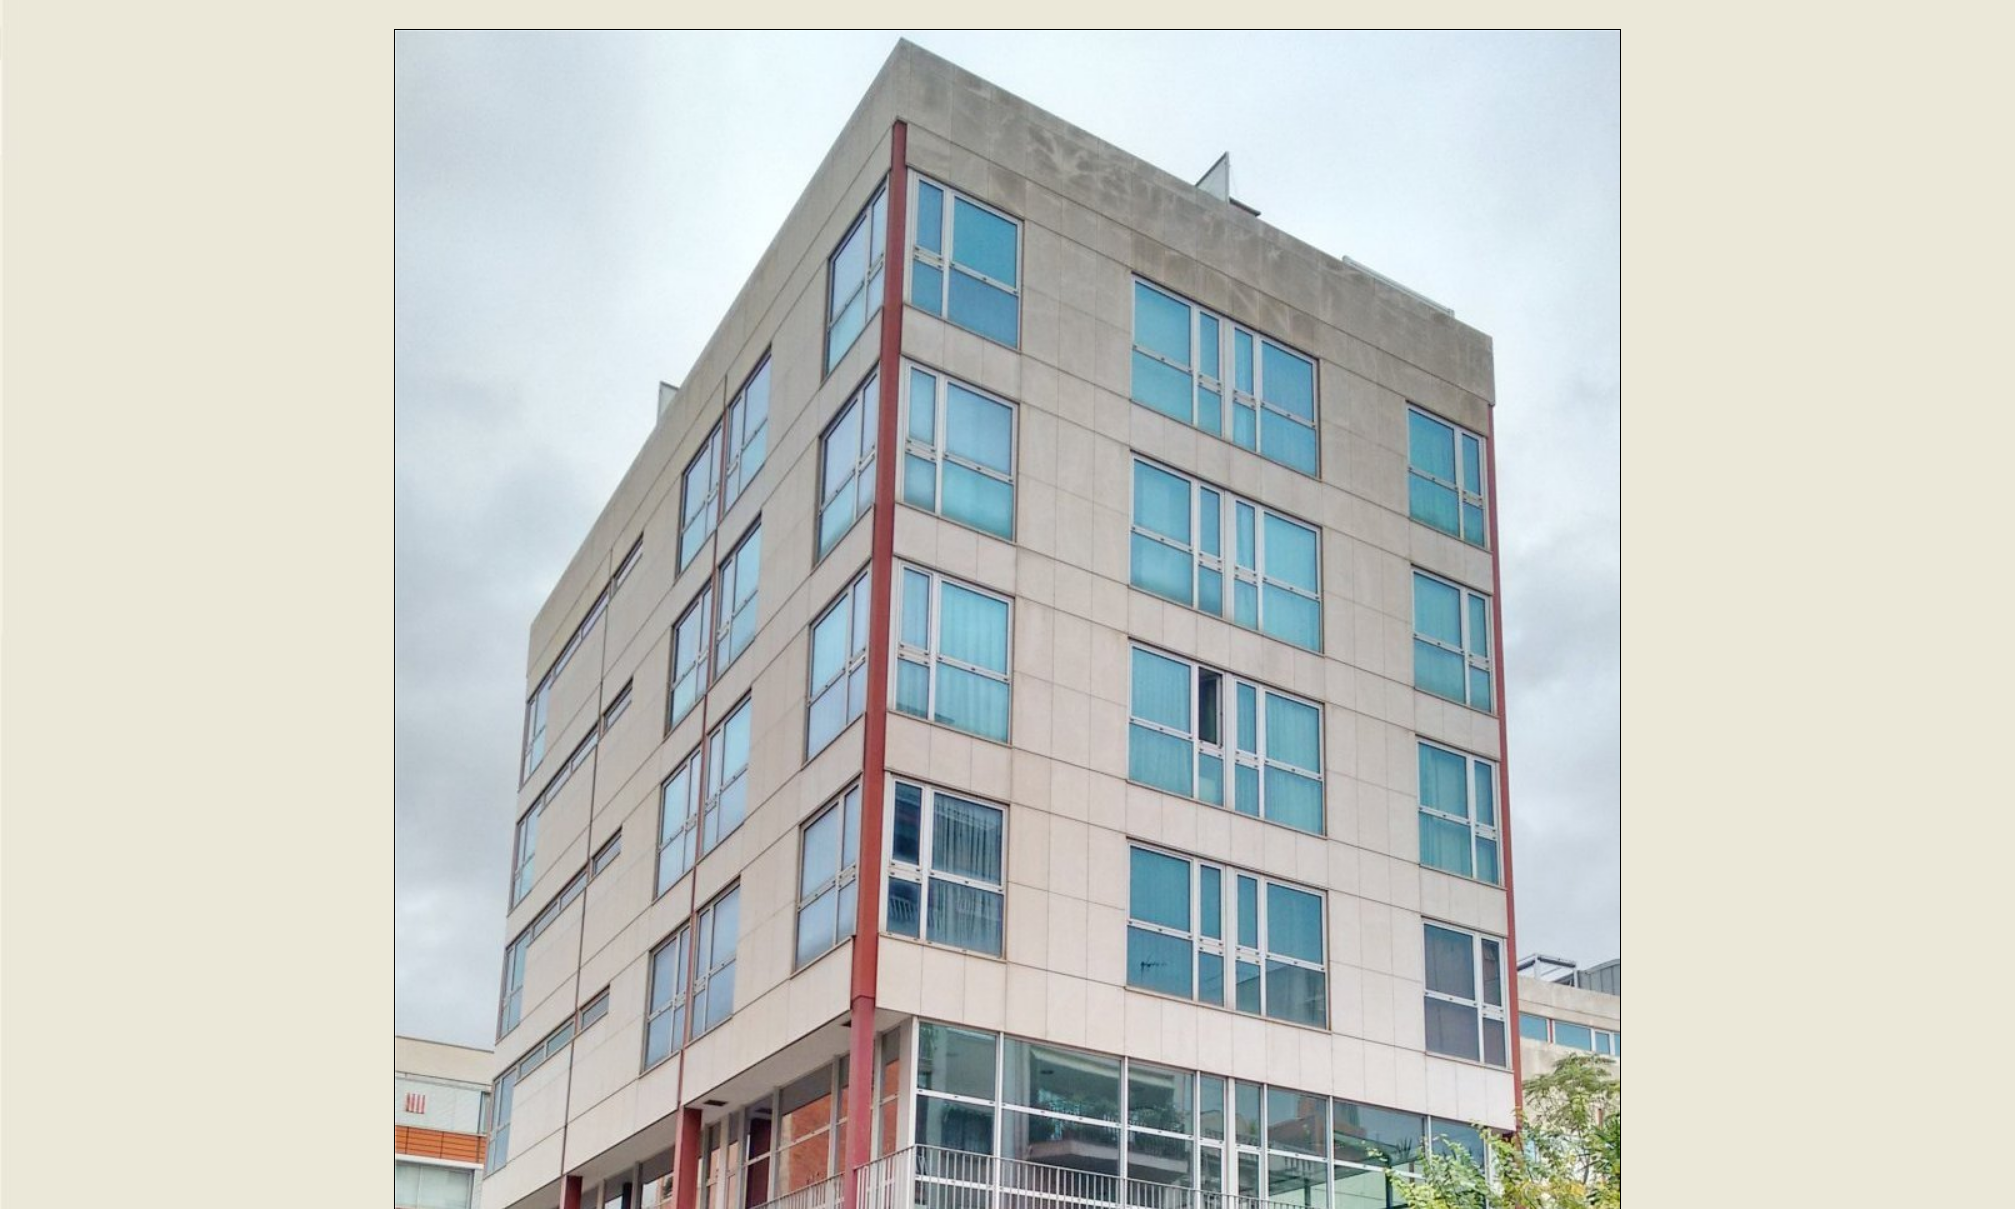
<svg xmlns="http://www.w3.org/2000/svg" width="2015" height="1209">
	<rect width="100%" height="100%" fill="#FFFFFF" />
	<image x="0" y="0" width="2015" height="1209" href="assets/img1.png" />
	<rect x="394.5" y="29.5" width="1226" height="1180" fill="none" stroke="#000000" />
	<image x="395" y="30" width="1225" height="1179" href="assets/img2.png" />
</svg>
